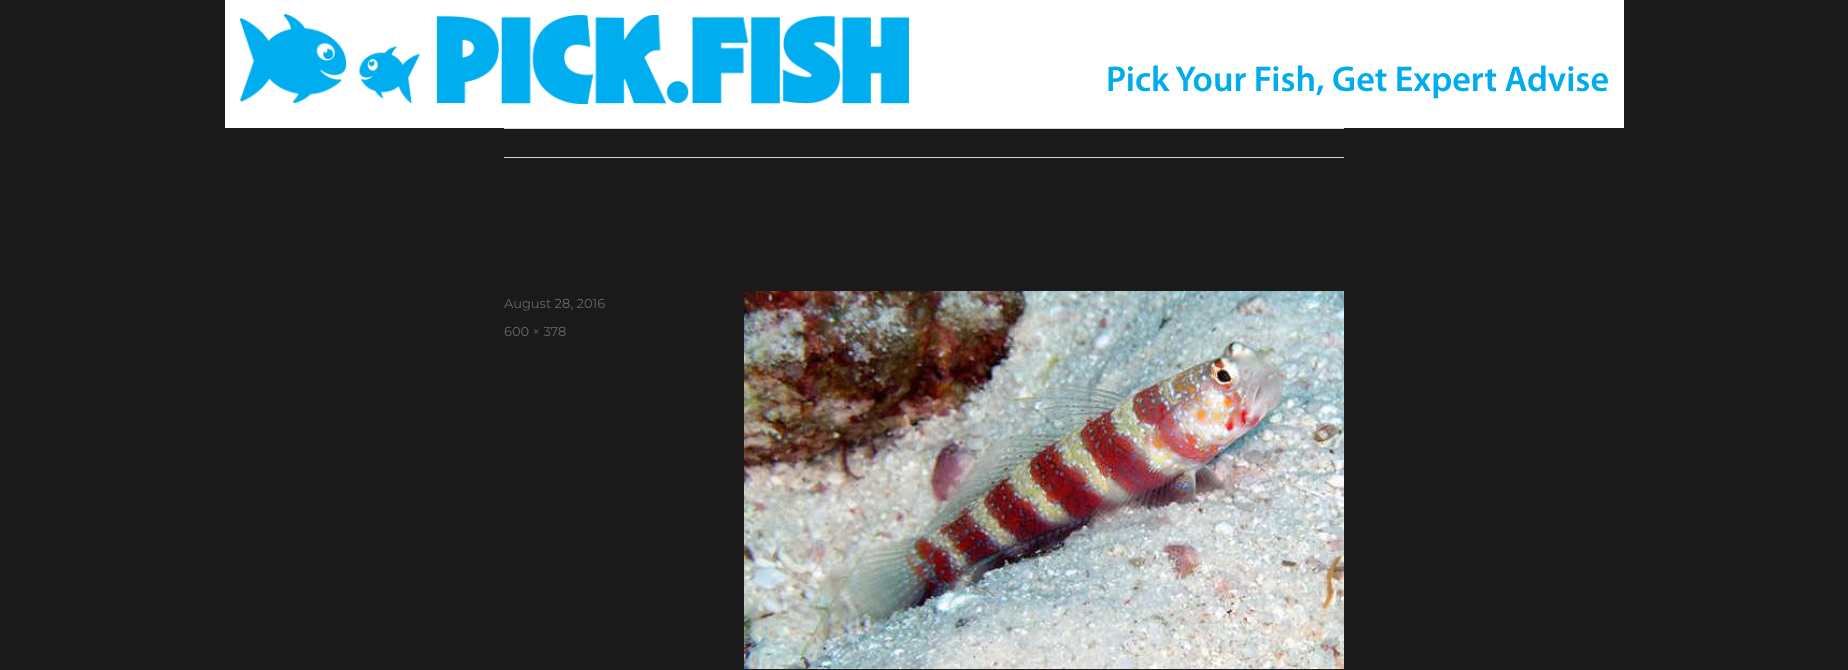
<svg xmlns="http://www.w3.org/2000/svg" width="1848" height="670">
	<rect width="100%" height="100%" fill="#1A1A1A" />
	<rect x="225" y="0" width="1399" height="128" fill="#FFFFFF" />
	<image x="240" y="14" width="669" height="90" href="assets/img1.png" />
	<text x="1106" y="91" font-family="Myriad" font-size="36" font-weight="600" fill="#00ACEC">Pick Your Fish, Get Expert Advise</text>
	<rect x="504" y="128" width="840" height="1" fill="#D1D1D1" />
	<rect x="504" y="157" width="840" height="1" fill="#D1D1D1" />
	<g font-family="Montserrat" font-size="13" fill="#686868">
		<text x="504" y="308">August 28, 2016</text>
		<text x="504" y="336">600 × 378</text>
	</g>
	<image x="744" y="291" width="600" height="378" href="assets/img2.png" />
</svg>
